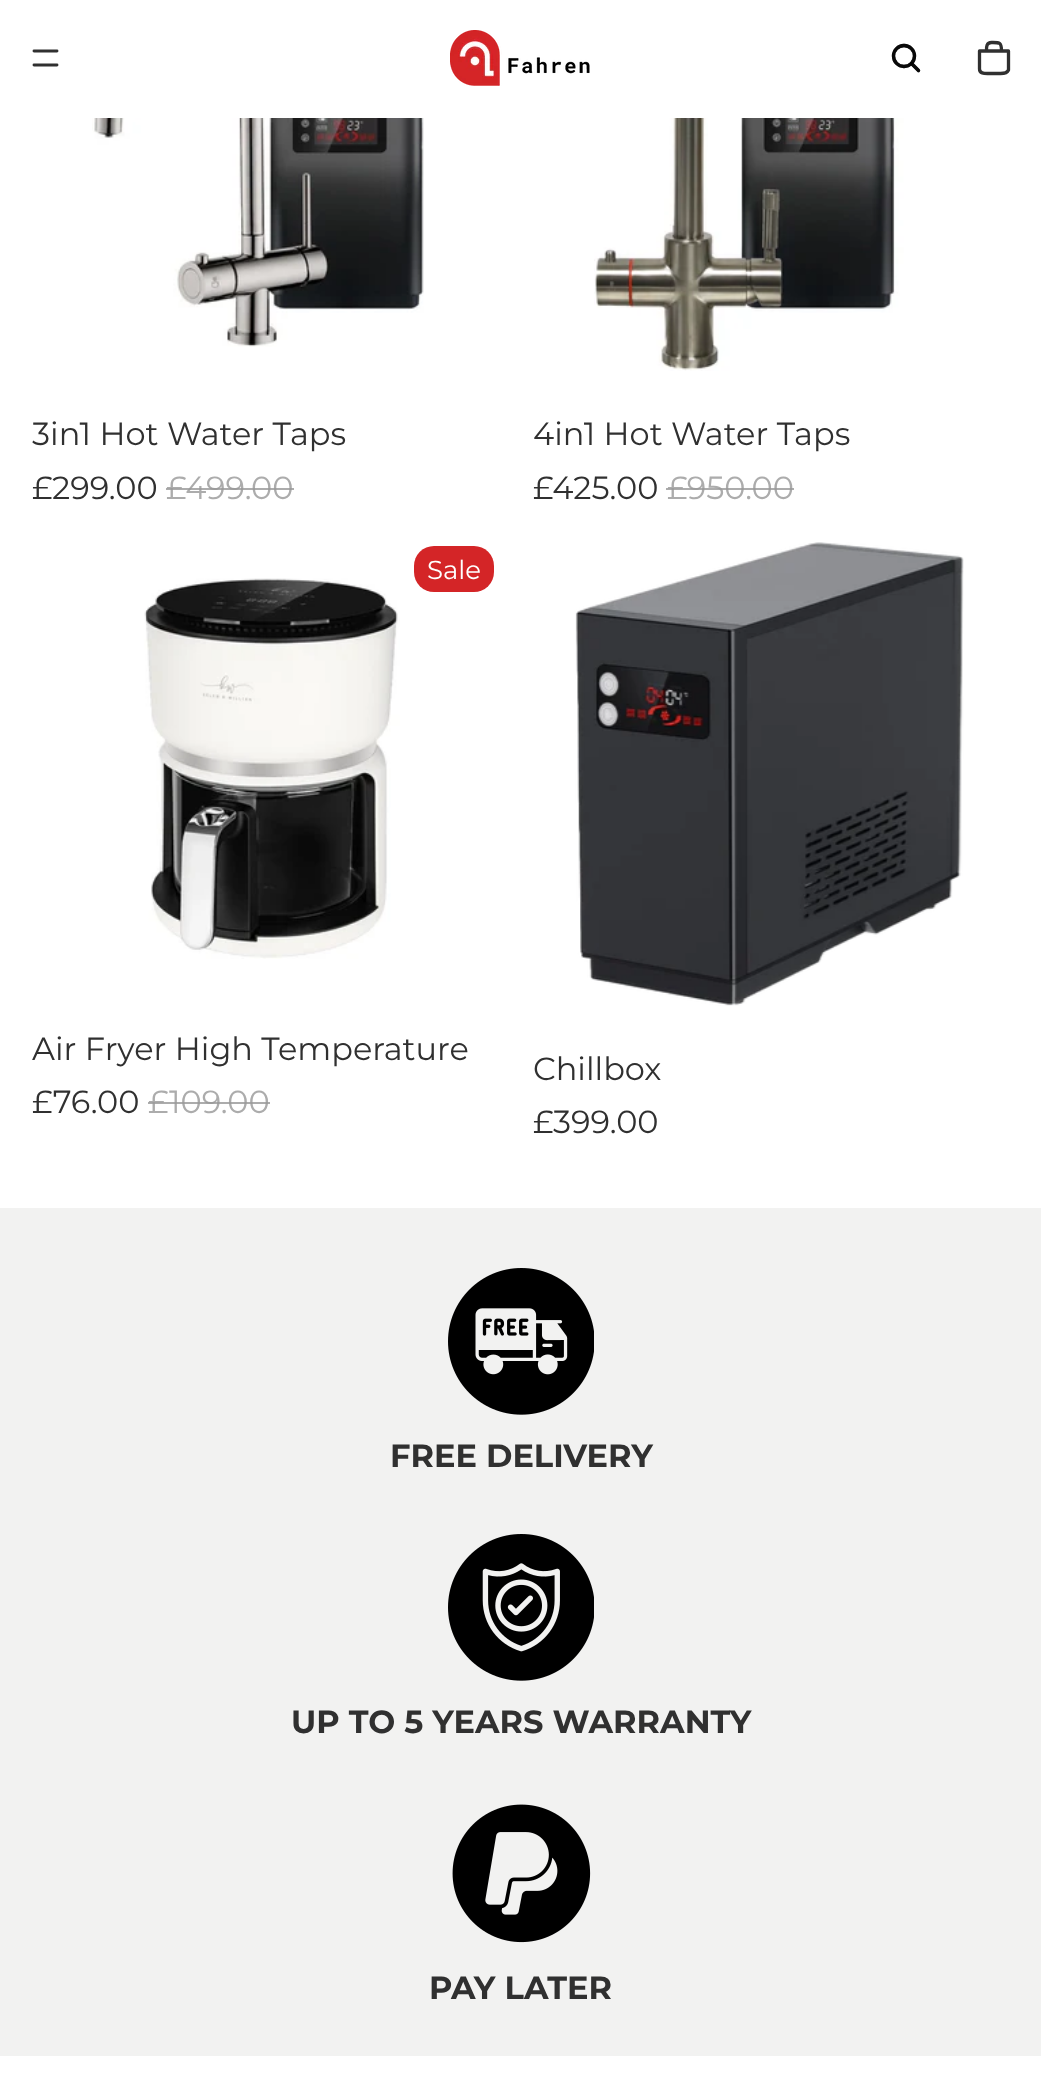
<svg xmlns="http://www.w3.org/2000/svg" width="1041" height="2091">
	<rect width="100%" height="100%" fill="#FFFFFF" />
	<path d="M34 51H57M34 65H57" fill="none" stroke="#303030" stroke-width="2.9" stroke-linecap="round" />
	<image x="450" y="30" width="140" height="56" href="assets/img1.png" />
	<circle cx="904" cy="56" r="10.5" fill="none" stroke="#303030" stroke-width="3.3" />
	<path d="M911.5 63.5L918.5 70.5" fill="none" stroke="#000000" stroke-opacity="0.81" stroke-width="3.3" stroke-linecap="round" stroke-linejoin="round" />
	<circle cx="904" cy="56" r="10.5" fill="none" stroke="#000000" stroke-opacity="0.81" stroke-width="3.3" />
	<path d="M911.5 63.5L918.5 70.5" fill="none" stroke="#000000" stroke-opacity="0.81" stroke-width="3.3" stroke-linecap="round" stroke-linejoin="round" />
	<path d="M979.5 51H1008.5V70C1007 73.5 1003.5 73.5 1000.5 73.5H987.5C984 73.5 979.5 73.5 979.5 69ZM991.5 42.5C999.5 42.5 1001.5 42 1001.5 51H986.5C986.5 47.5 986 42.5 991.5 42.5" fill="none" stroke="#303030" stroke-width="3.3" stroke-linecap="round" stroke-linejoin="round" />
	<image x="92" y="118" width="332" height="229" href="assets/img2.png" />
	<g font-family="Montserrat" font-size="32" fill="#303030">
		<text x="32" y="445">3in1 Hot Water Taps</text>
		<text x="32" y="499">£299.00</text>
	</g>
	<text x="166" y="499" font-family="Montserrat" font-size="32" fill="#ACACAC">£499.00</text>
	<rect x="166" y="488" width="128" height="2" fill="#999999" fill-opacity="0.81" />
	<image x="594" y="118" width="337" height="253" href="assets/img3.png" />
	<g font-family="Montserrat" font-size="32" fill="#303030">
		<text x="533" y="445">4in1 Hot Water Taps</text>
		<text x="533" y="499">£425.00</text>
	</g>
	<text x="667" y="499" font-family="Montserrat" font-size="32" fill="#ACACAC">£950.00</text>
	<rect x="666" y="488" width="128" height="2" fill="#999999" fill-opacity="0.81" />
	<rect x="414" y="546" width="80" height="46" rx="20" fill="#D42527" />
	<text x="427" y="579" font-family="Montserrat" font-size="26" fill="#FFFFFF">Sale</text>
	<image x="144" y="578" width="256" height="381" href="assets/img4.png" />
	<g font-family="Montserrat" font-size="32" fill="#303030">
		<text x="32" y="1060">Air Fryer High Temperature</text>
		<text x="32" y="1113">£76.00</text>
	</g>
	<text x="148" y="1113" font-family="Montserrat" font-size="32" fill="#ACACAC">£109.00</text>
	<rect x="148" y="1102" width="122" height="2" fill="#999999" fill-opacity="0.81" />
	<image x="575" y="542" width="389" height="464" href="assets/img5.png" />
	<g font-family="Montserrat" font-size="32" fill="#303030">
		<text x="533" y="1080">Chillbox</text>
		<text x="533" y="1133">£399.00</text>
	</g>
	<rect x="0" y="1208" width="1041" height="848" fill="#F2F2F1" />
	<image x="448" y="1268" width="146" height="147" href="assets/img6.png" />
	<text x="390" y="1467" font-family="Montserrat" font-size="32" font-weight="700" fill="#303030">FREE DELIVERY</text>
	<image x="448" y="1534" width="146" height="147" href="assets/img7.png" />
	<text x="291" y="1733" font-family="Montserrat" font-size="32" font-weight="700" fill="#303030">UP TO 5 YEARS WARRANTY</text>
	<image x="452" y="1804" width="139" height="139" href="assets/img8.png" />
	<text x="429" y="1999" font-family="Montserrat" font-size="32" font-weight="700" fill="#303030">PAY LATER</text>
</svg>
